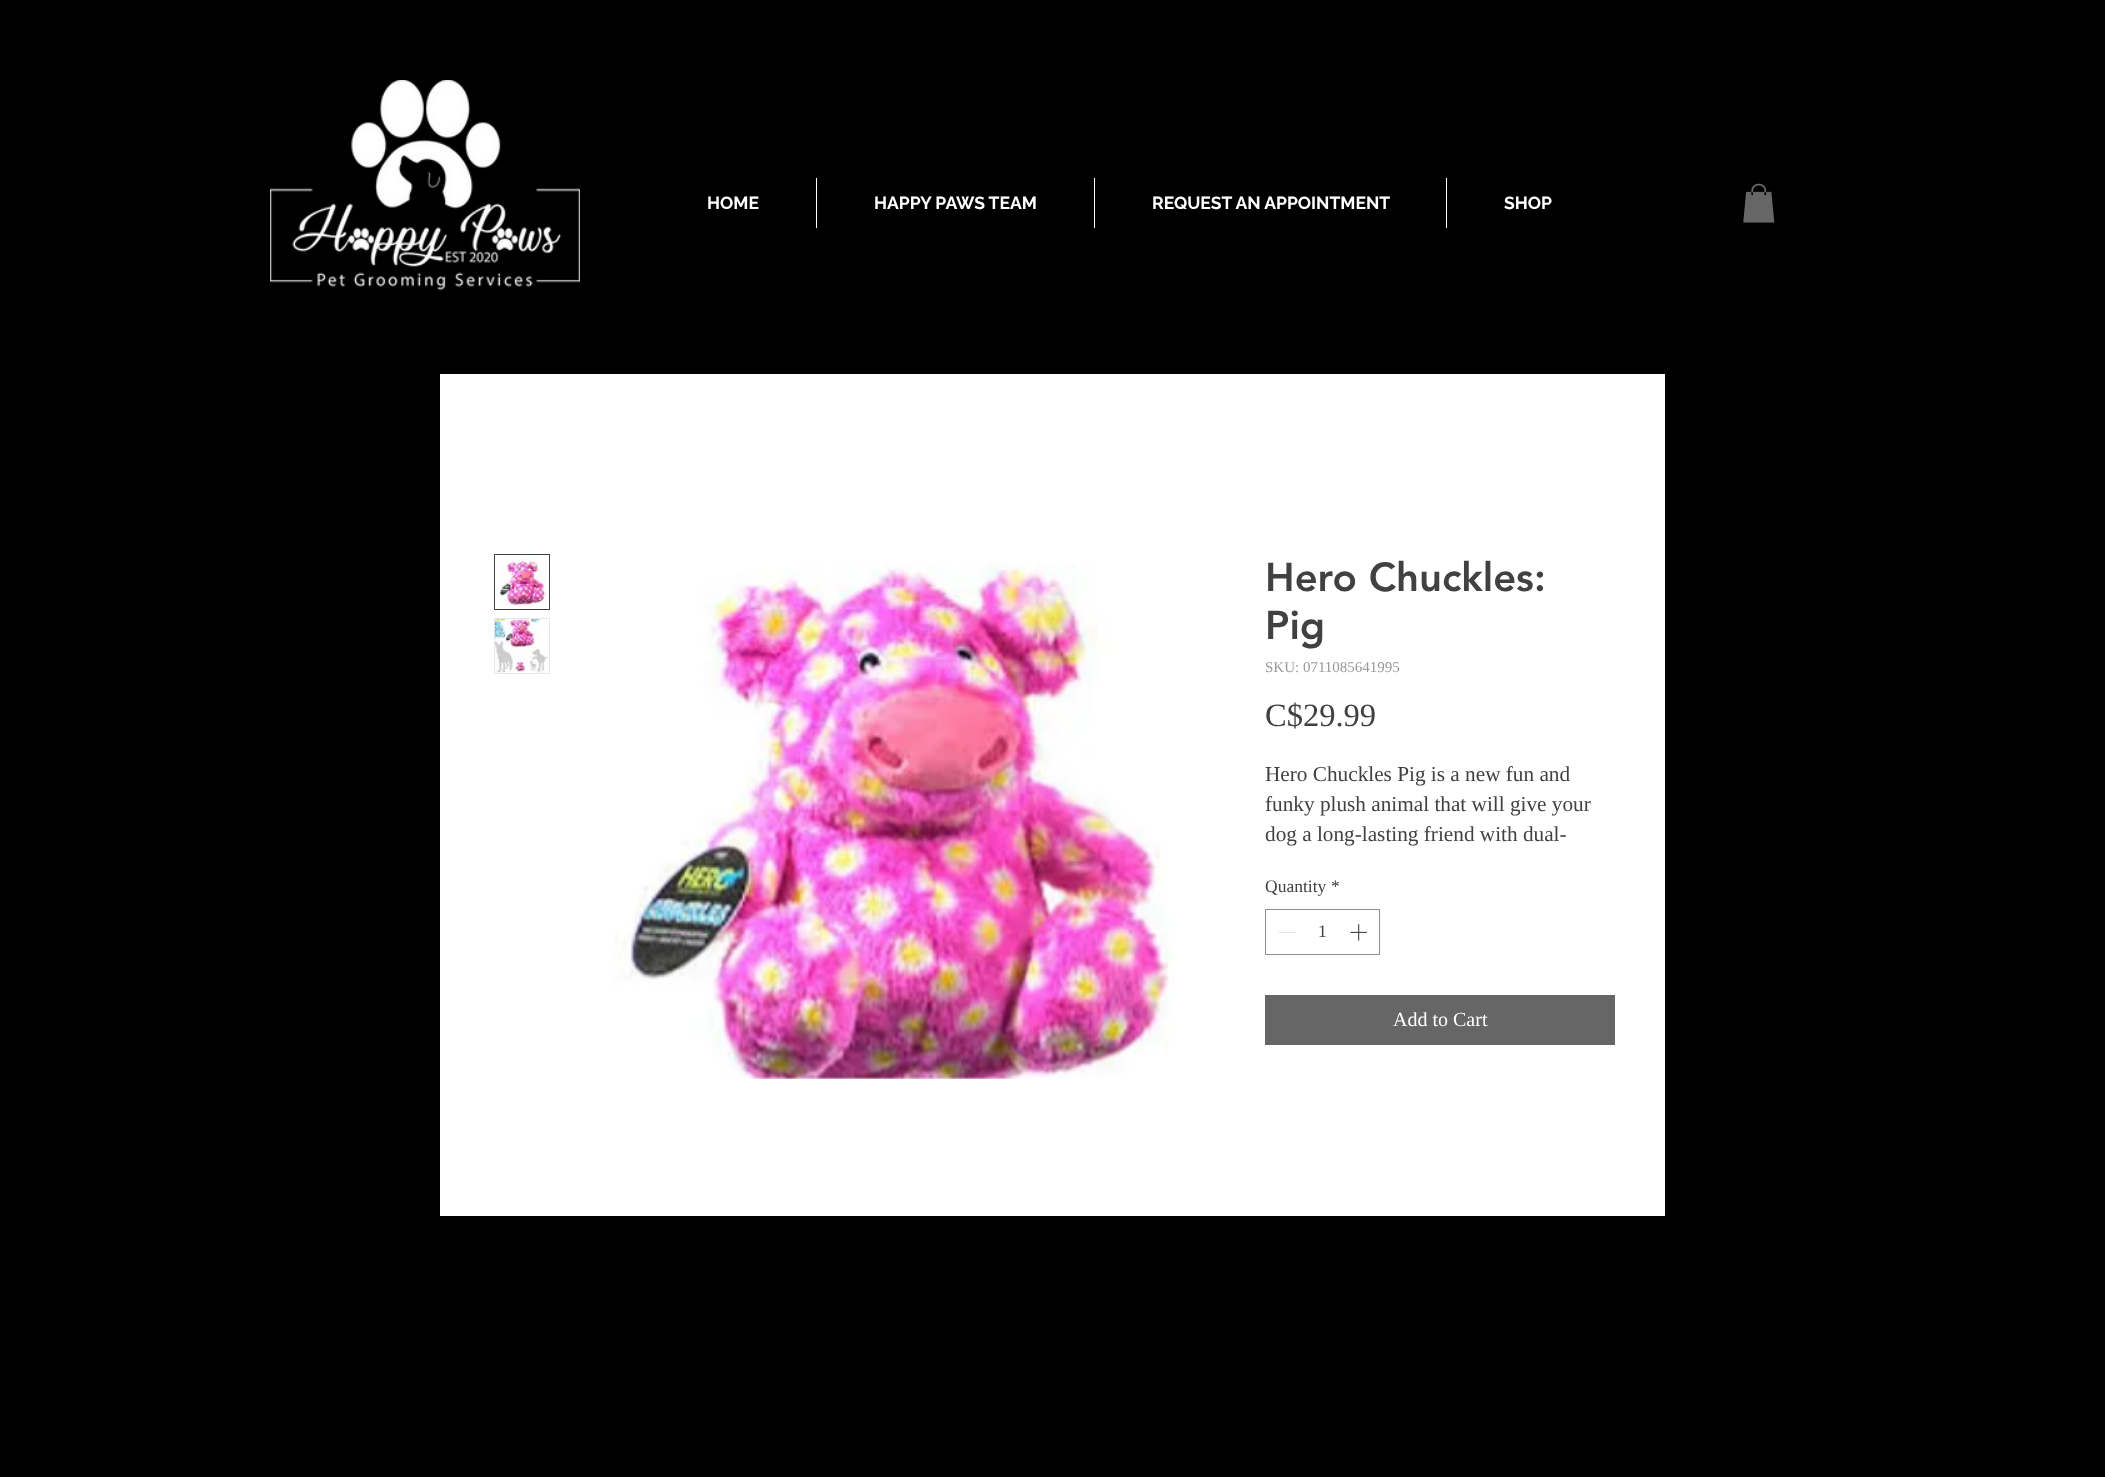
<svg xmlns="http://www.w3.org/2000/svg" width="2105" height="1477">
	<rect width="100%" height="100%" fill="#000000" />
	<image x="270" y="80" width="310" height="211" href="assets/img1.png" />
	<text x="707" y="209" font-family="Raleway" font-size="17.5" font-weight="700" fill="#FFFFFF">HOME</text>
	<rect x="816" y="178" width="1" height="50" fill="#FFFFFF" />
	<text x="874" y="209" font-family="Raleway" font-size="17.5" font-weight="700" fill="#FFFFFF">HAPPY PAWS TEAM</text>
	<rect x="1094" y="178" width="1" height="50" fill="#FFFFFF" />
	<text x="1152" y="209" font-family="Raleway" font-size="17.5" font-weight="700" fill="#FFFFFF">REQUEST AN APPOINTMENT</text>
	<rect x="1446" y="178" width="1" height="50" fill="#FFFFFF" />
	<text x="1504" y="209" font-family="Raleway" font-size="17.5" font-weight="700" fill="#FFFFFF">SHOP</text>
	<image x="1743" y="183" width="32" height="40" href="assets/img2.png" />
	<rect x="440" y="374" width="1225" height="842" fill="#FFFFFF" />
	<rect x="494.5" y="554.5" width="55" height="55" fill="none" stroke="#414141" />
	<image x="499" y="555" width="47" height="51" href="assets/img3.png" />
	<rect x="494.5" y="618.5" width="55" height="55" fill="none" stroke="#E8E6E6" />
	<image x="495" y="618" width="54" height="55" href="assets/img4.png" />
	<image x="614" y="563" width="561" height="516" href="assets/img5.png" />
	<g font-family="'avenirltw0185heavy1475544'" font-size="40" font-weight="900" fill="#414141">
		<text x="1265" y="591">Hero Chuckles:</text>
		<text x="1265" y="639">Pig</text>
	</g>
	<text x="1265" y="672" font-family="Liberation Serif" font-size="15" fill="#999997">SKU: 0711085641995</text>
	<text x="1265" y="726" font-family="Liberation Serif" font-size="32.5" fill="#414141">C$29.99</text>
	<g font-family="Liberation Serif" font-size="21.25" fill="#414141">
		<text x="1265" y="781">Hero Chuckles Pig is a new fun and</text>
		<text x="1265" y="811">funky plush animal that will give your</text>
		<text x="1265" y="841">dog a long-lasting friend with dual-</text>
	</g>
	<g font-family="Liberation Serif" font-size="17.5" fill="#414141">
		<text x="1265" y="892">Quantity</text>
		<text x="1331" y="892">*</text>
	</g>
	<rect x="1265.5" y="909.5" width="114" height="45" fill="none" stroke="#8D8D8D" />
	<rect x="1279" y="932" width="17" height="1" fill="#E3E3E3" />
	<text x="1318" y="937" font-family="Liberation Serif" font-size="17.5" fill="#414141">1</text>
	<image x="1350" y="924" width="17" height="17" href="assets/img6.png" />
	<rect x="1265" y="995" width="350" height="50" fill="#666666" />
	<text x="1393" y="1026" font-family="Liberation Serif" font-size="20" fill="#FFFFFF">Add to Cart</text>
</svg>
